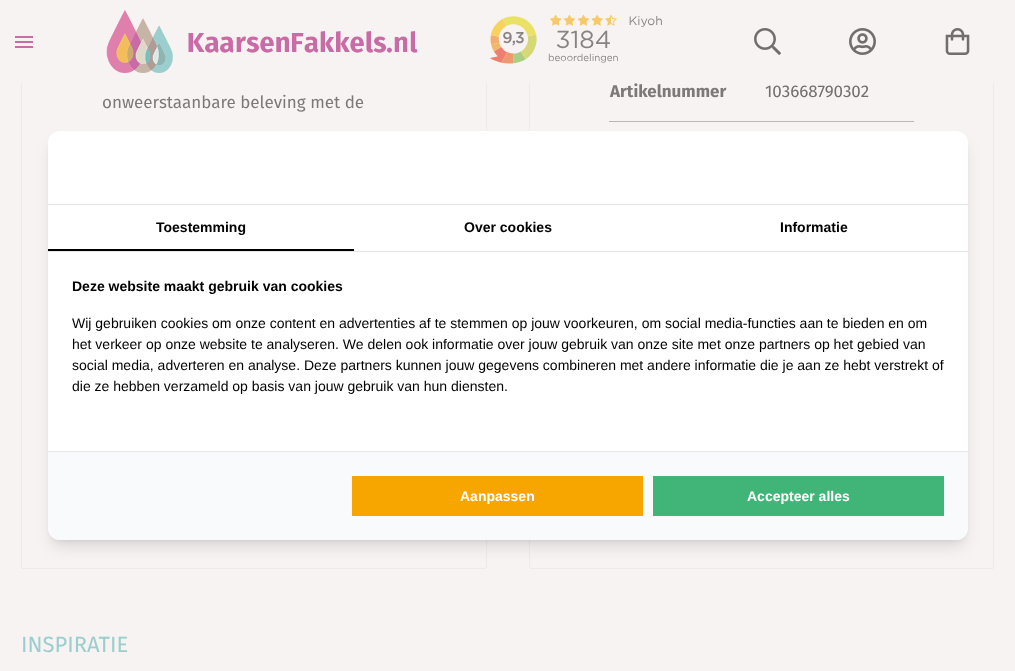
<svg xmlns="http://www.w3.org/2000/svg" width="1015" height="671">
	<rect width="100%" height="100%" fill="#F7F3F3" />
	<rect x="529.5" y="-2.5" width="464" height="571" rx="1.5" fill="none" stroke="#EEEAEA" />
	<rect x="21.5" y="-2.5" width="465" height="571" rx="1.5" fill="none" stroke="#EEEAEA" />
	<rect x="21" y="0" width="973" height="83" fill="#F7F3F3" />
	<rect x="15" y="41" width="18" height="2" fill="#C96BA5" />
	<rect x="15" y="36" width="18" height="2" fill="#C96BA5" />
	<rect x="15" y="46" width="18" height="2" fill="#C96BA5" />
	<image x="106" y="10" width="312" height="63" href="assets/img1.png" />
	<image x="489" y="14" width="173" height="50" href="assets/img2.png" />
	<image x="754" y="28" width="27" height="27" href="assets/img3.png" />
	<image x="849" y="28" width="27" height="27" href="assets/img4.png" />
	<image x="945" y="28" width="25" height="27" href="assets/img5.png" />
	<rect x="609" y="121" width="305" height="1" fill="#B9B5B5" />
	<text x="610" y="97" font-family="Fira Sans" font-size="17" font-weight="700" fill="#7D7979">Artikelnummer</text>
	<text x="765" y="97" font-family="Fira Sans" font-size="17" fill="#726E6E">103668790302</text>
	<text x="102" y="108" font-family="Fira Sans" font-size="17" fill="#7D7979">onweerstaanbare beleving met de</text>
	<text x="21" y="652" font-family="Fira Sans" font-size="22" fill="#9BCECC">INSPIRATIE</text>
	<rect x="52" y="139" width="912" height="401" rx="8" fill="#000000" fill-opacity="0.1" filter="blur(3px)" />
	<rect x="51" y="144" width="914" height="403" rx="9" fill="#000000" fill-opacity="0.1" filter="blur(7.5px)" />
	<rect x="48" y="131" width="920" height="409" rx="12" fill="#FFFFFF" />
	<rect x="48" y="204" width="920" height="1" fill="#E5E7EB" />
	<rect x="48" y="251" width="920" height="1" fill="#E5E7EB" />
	<rect x="48" y="249" width="306" height="2" fill="#000000" />
	<g font-family="Liberation Sans" font-size="14" font-weight="700" fill="#000000">
		<text x="156" y="232">Toestemming</text>
		<text x="464" y="232">Over cookies</text>
		<text x="780" y="232">Informatie</text>
		<text x="72" y="291">Deze website maakt gebruik van cookies</text>
	</g>
	<g font-family="Liberation Sans" font-size="14" fill="#000000">
		<text x="72" y="328">Wij gebruiken cookies om onze content en advertenties af te stemmen op jouw voorkeuren, om social media-functies aan te bieden en om</text>
		<text x="72" y="349">het verkeer op onze website te analyseren. We delen ook informatie over jouw gebruik van onze site met onze partners op het gebied van</text>
		<text x="72" y="370">social media, adverteren en analyse. Deze partners kunnen jouw gegevens combineren met andere informatie die je aan ze hebt verstrekt of</text>
		<text x="72" y="391">die ze hebben verzameld op basis van jouw gebruik van hun diensten.</text>
	</g>
	<path d="M48 451H968V528C968 534.5 962.5 540 956 540H60C53.5 540 48 534.5 48 528Z" fill="#F9FAFB" />
	<rect x="48" y="451" width="920" height="1" fill="#E5E7EB" />
	<rect x="352" y="476" width="291" height="40" fill="#F7A600" />
	<text x="460" y="501" font-family="Liberation Sans" font-size="14" font-weight="700" fill="#FFFFFF">Aanpassen</text>
	<rect x="653" y="476" width="291" height="40" fill="#41B577" />
	<text x="747" y="501" font-family="Liberation Sans" font-size="14" font-weight="700" fill="#FFFFFF">Accepteer alles</text>
</svg>
